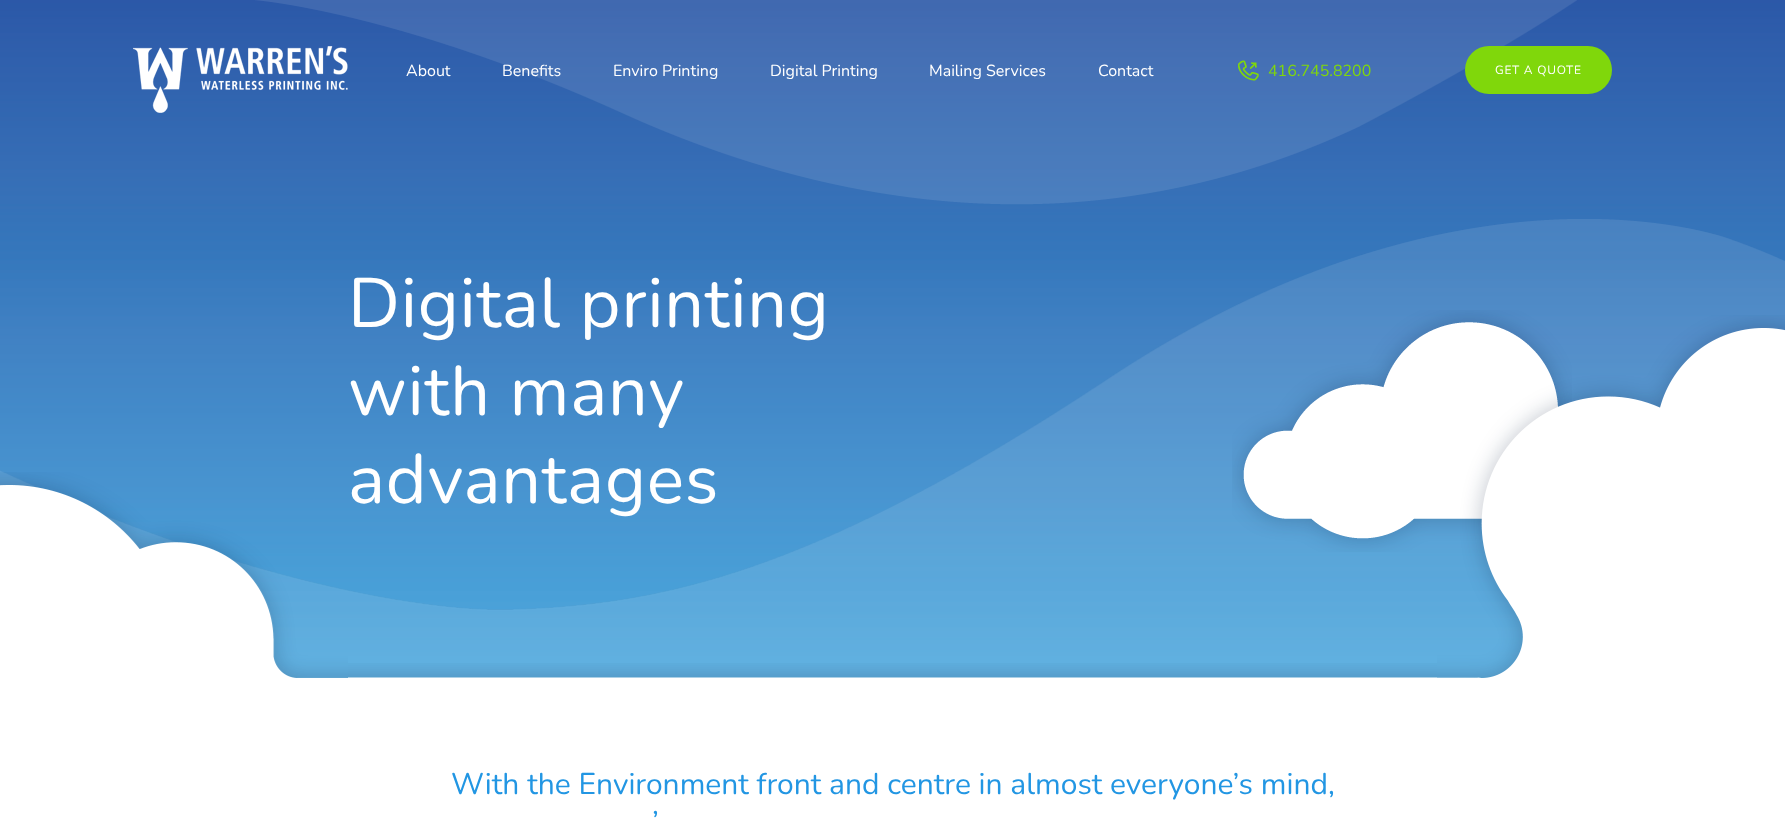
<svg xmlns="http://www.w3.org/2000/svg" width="1785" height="819">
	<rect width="100%" height="100%" fill="#FFFFFF" />
	<image x="0" y="0" width="1785" height="678" href="assets/img1.png" />
	<image x="255" y="0" width="1322" height="205" href="assets/img4.png" />
	<image x="133" y="46" width="215" height="67" href="assets/img2.png" />
	<g font-family="Nunito" font-size="16" fill="#FFFFFF">
		<text x="406" y="76">About</text>
		<text x="502" y="76">Benefits</text>
		<text x="613" y="76">Enviro Printing</text>
		<text x="770" y="76">Digital Printing</text>
		<text x="929" y="76">Mailing Services</text>
		<text x="1098" y="76">Contact</text>
	</g>
	<image x="1238" y="60" width="21" height="21" href="assets/img3.png" />
	<text x="1268" y="76" font-family="Nunito" font-size="16" fill="#80D70B">416.745.8200</text>
	<rect x="1465" y="46" width="147" height="48" rx="24" fill="#80D70B" />
	<text x="1495" y="74" font-family="Nunito" font-size="12" letter-spacing="0.75" fill="#FFFFFF">GET A QUOTE</text>
	<image x="0" y="219" width="1785" height="459" href="assets/img5.png" />
	<g font-family="Nunito" font-size="70" letter-spacing="0.75" fill="#FFFFFF">
		<text x="348" y="327">Digital printing</text>
		<text x="348" y="415">with many</text>
		<text x="348" y="503">advantages</text>
	</g>
	<image x="1232" y="310" width="340" height="242" href="assets/img6.png" />
	<image x="0" y="472" width="348" height="234" href="assets/img7.png" />
	<image x="348" y="663" width="1089" height="43" href="assets/img8.png" />
	<image x="1437" y="315" width="348" height="391" href="assets/img9.png" />
	<g font-family="Nunito" font-size="30" fill="#2296E3">
		<text x="451" y="794">With the Environment front and centre in almost everyone’s mind,</text>
		<text x="652" y="832">’</text>
	</g>
</svg>
